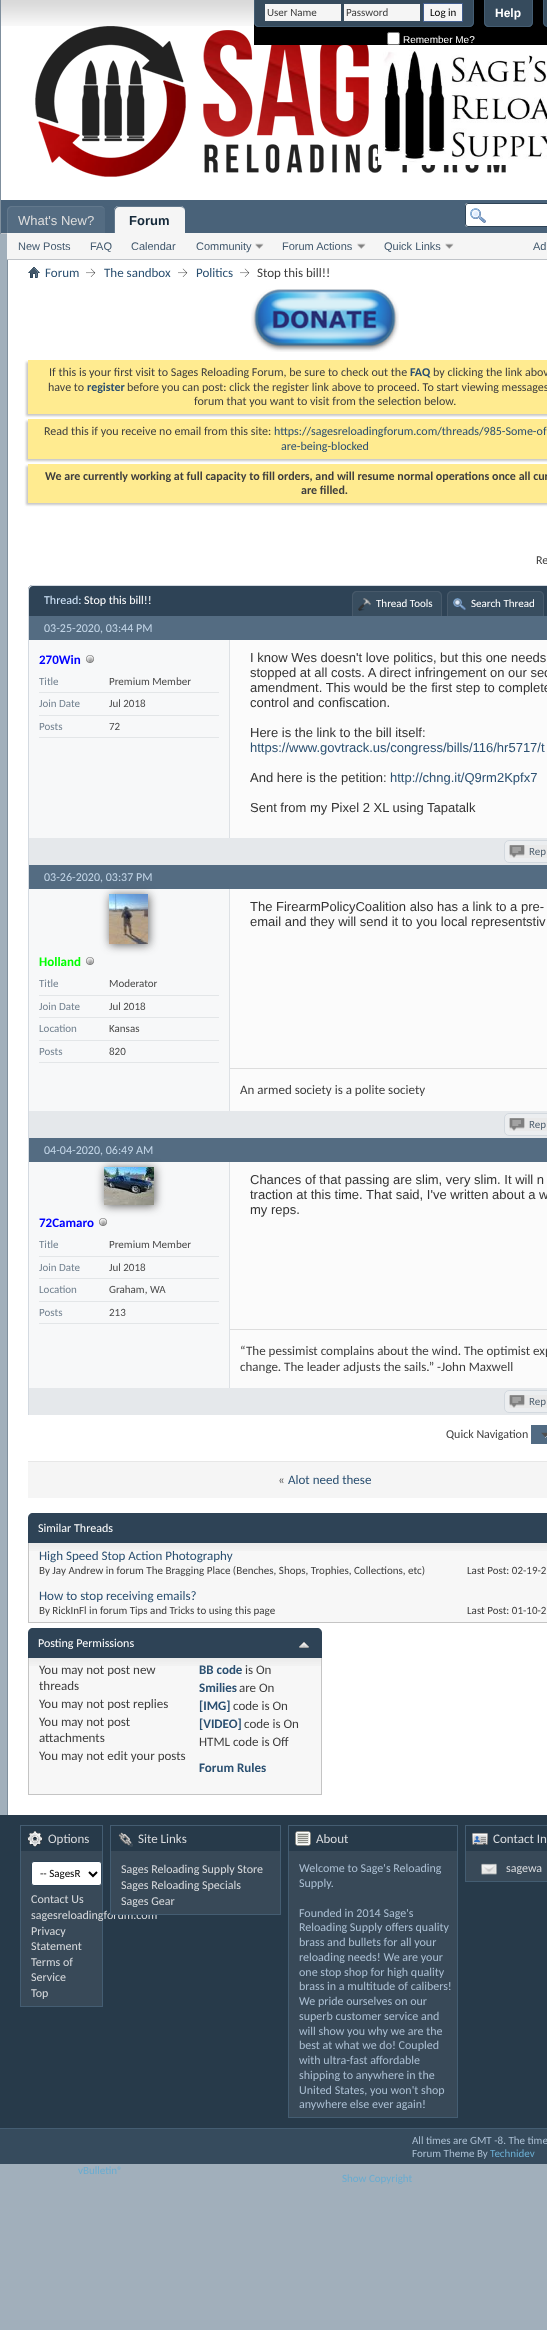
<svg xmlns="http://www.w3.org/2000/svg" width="547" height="2330">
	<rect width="100%" height="100%" fill="#A1AFBB" />
	<rect x="1" y="0" width="546" height="200" fill="#FFFFFF" />
	<image x="1" y="0" width="253" height="26" href="assets/img1.png" />
	<rect x="0" y="0" width="1" height="234" fill="#7F8F9D" />
	<image x="35" y="26" width="471" height="151" href="assets/img2.png" />
	<rect x="254" y="0" width="293" height="45" fill="#000000" />
	<path d="M254 0H474V22C474 25 472 27 469 27H259C256 27 254 25 254 22Z" fill="#364B5D" />
	<path d="M254 0H474V22C474 25 472 27 469 27H259C256 27 254 25 254 22ZM255 0H473V22C473 24 471 26 469 26H259C257 26 255 24 255 22Z" fill="#445D72" fill-rule="evenodd" />
	<rect x="265" y="4" width="76" height="17" fill="#F5F5F5" />
	<text x="267" y="16" font-family="Carlito" font-size="11" fill="#3E3E3E">User Name</text>
	<rect x="344" y="4" width="76" height="17" fill="#F5F5F5" />
	<text x="346" y="16" font-family="Carlito" font-size="11" fill="#3E3E3E">Password</text>
	<rect x="423.5" y="3.5" width="39" height="18" fill="#F5F5F5" stroke="#415D8D" />
	<text x="430" y="16" font-family="Carlito" font-size="11" fill="#000000">Log in</text>
	<rect x="387.5" y="32.5" width="12" height="12" rx="1.5" fill="#FFFFFF" stroke="#767676" />
	<text x="403" y="43" font-family="Liberation Sans" font-size="10" fill="#FFFFFF">Remember Me?</text>
	<path d="M484 0H533V22C533 25 531 27 528 27H489C486 27 484 25 484 22Z" fill="#364B5D" />
	<path d="M484 0H533V22C533 25 531 27 528 27H489C486 27 484 25 484 22ZM485 0H532V22C532 24 530 26 528 26H489C487 26 485 24 485 22Z" fill="#445D72" fill-rule="evenodd" />
	<text x="495" y="17" font-family="Liberation Sans" font-size="12" font-weight="700" fill="#FFFFFF">Help</text>
	<path d="M543 0H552V22C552 25 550 27 547 27H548C545 27 543 25 543 22Z" fill="#364B5D" />
	<path d="M543 0H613V22C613 25 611 27 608 27H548C545 27 543 25 543 22ZM544 0H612V22C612 24 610 26 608 26H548C546 26 544 24 544 22Z" fill="#445D72" fill-rule="evenodd" />
	<image x="378" y="45" width="169" height="120" href="assets/img3.png" />
	<rect x="1" y="200" width="546" height="33" fill="#496279" />
	<rect x="1" y="233" width="6" height="1" fill="#C0C4C9" />
	<path d="M12 206H100C103 206 105 208 105 211V233H7V211C7 208 9 206 12 206Z" fill="#546C82" />
	<path d="M12 206H100C103 206 105 208 105 211V233H7V211C7 208 9 206 12 206ZM12 207H100C103 207 105 209 105 211V233H8V211C8 209 10 207 12 207Z" fill="#62788C" fill-rule="evenodd" />
	<text x="18" y="225" font-family="Liberation Sans" font-size="13" fill="#DEDEDE">What's New?</text>
	<path d="M119 206H180C183 206 185 208 185 211V233H114V211C114 208 116 206 119 206Z" fill="#F5F5F5" />
	<path d="M119 206H180C183 206 185 208 185 211V233H114V211C114 208 116 206 119 206ZM119 207H180C183 207 185 209 185 211V233H115V211C115 209 117 207 119 207Z" fill="#62788C" fill-rule="evenodd" />
	<text x="129" y="225" font-family="Liberation Sans" font-size="13" font-weight="700" fill="#15293A">Forum</text>
	<rect x="7" y="233" width="540" height="26" fill="#F5F5F5" />
	<rect x="7" y="259" width="540" height="1" fill="#C0C4C9" />
	<g font-family="Liberation Sans" font-size="11" fill="#41586D">
		<text x="18" y="250">New Posts</text>
		<text x="90" y="250">FAQ</text>
		<text x="131" y="250">Calendar</text>
		<text x="196" y="250">Community</text>
	</g>
	<image x="255" y="243" width="9" height="6" href="assets/img4.png" />
	<text x="282" y="250" font-family="Liberation Sans" font-size="11" fill="#41586D">Forum Actions</text>
	<image x="357" y="243" width="9" height="6" href="assets/img4.png" />
	<text x="384" y="250" font-family="Liberation Sans" font-size="11" fill="#41586D">Quick Links</text>
	<image x="445" y="243" width="9" height="6" href="assets/img4.png" />
	<rect x="465" y="203" width="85" height="24" rx="3" fill="#FFFFFF" />
	<image x="470" y="208" width="16" height="15" href="assets/img5.png" />
	<rect x="465.5" y="203.5" width="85" height="23" rx="2.5" fill="none" stroke="#2E4356" />
	<text x="533" y="250" font-family="Liberation Sans" font-size="11" fill="#41586D">Ad</text>
	<rect x="8" y="260" width="539" height="1555" fill="#FFFFFF" />
	<rect x="7" y="260" width="1" height="1555" fill="#7F8F9D" />
	<image x="28" y="267" width="12" height="11" href="assets/img6.png" />
	<image x="86" y="268" width="10" height="9" href="assets/img7.png" />
	<text x="45" y="277" font-family="Carlito" font-size="13" fill="#2B5071">Forum</text>
	<image x="178" y="268" width="10" height="9" href="assets/img7.png" />
	<text x="104" y="277" font-family="Carlito" font-size="13" fill="#2B5071">The sandbox</text>
	<image x="240" y="268" width="10" height="9" href="assets/img7.png" />
	<text x="196" y="277" font-family="Carlito" font-size="13" fill="#2B5071">Politics</text>
	<text x="257" y="277" font-family="Carlito" font-size="13" fill="#3E3E3E">Stop this bill!!</text>
	<image x="251" y="289" width="148" height="63" href="assets/img8.png" />
	<rect x="26" y="362" width="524" height="54" fill="#C8C8C8" filter="blur(1px)" />
	<rect x="28" y="360" width="519" height="54" fill="#FFEB90" />
	<text x="49" y="376" font-family="Carlito" font-size="12" fill="#3E3E3E">If this is your first visit to Sages Reloading Forum, be sure to check out the</text>
	<text x="410" y="376" font-family="Carlito" font-size="12" font-weight="700" fill="#2B5071">FAQ</text>
	<g font-family="Carlito" font-size="12" fill="#3E3E3E">
		<text x="433" y="376">by clicking the link abov</text>
		<text x="48" y="391">have to</text>
	</g>
	<text x="87" y="391" font-family="Carlito" font-size="12" font-weight="700" fill="#2B5071">register</text>
	<g font-family="Carlito" font-size="12" fill="#3E3E3E">
		<text x="127" y="391">before you can post: click the register link above to proceed. To start viewing messages</text>
		<text x="194" y="405">forum that you want to visit from the selection below.</text>
	</g>
	<rect x="26" y="421" width="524" height="40" fill="#C8C8C8" filter="blur(1px)" />
	<rect x="28" y="419" width="519" height="40" fill="#FFEB90" />
	<text x="44" y="435" font-family="Carlito" font-size="12" fill="#3E3E3E">Read this if you receive no email from this site:</text>
	<g font-family="Carlito" font-size="12" fill="#2B5071">
		<text x="274" y="435">https://sagesreloadingforum.com/threads/985-Some-of</text>
		<text x="281" y="450">are-being-blocked</text>
	</g>
	<rect x="26" y="466" width="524" height="39" fill="#C8C8C8" filter="blur(1px)" />
	<rect x="28" y="464" width="519" height="39" fill="#FFEB90" />
	<g font-family="Carlito" font-size="12" font-weight="700" fill="#3E3E3E">
		<text x="45" y="480">We are currently working at full capacity to fill orders, and will resume normal operations once all cur</text>
		<text x="301" y="494">are filled.</text>
	</g>
	<text x="536" y="564" font-family="Carlito" font-size="12" fill="#3E3E3E">Re</text>
	<path d="M33 585H547C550 585 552 587 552 590V616H28V590C28 587 30 585 33 585Z" fill="#2E4356" />
	<path d="M33 585H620C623 585 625 587 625 590V616H28V590C28 587 30 585 33 585ZM33 586H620C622 586 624 588 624 590V616H29V590C29 588 31 586 33 586Z" fill="#D4DAE1" fill-rule="evenodd" />
	<text x="44" y="604" font-family="Carlito" font-size="12" fill="#D5EAFF">Thread:</text>
	<text x="84" y="604" font-family="Carlito" font-size="12" fill="#FFFFFF">Stop this bill!!</text>
	<path d="M357 591H437C440 591 442 593 442 596V616H352V596C352 593 354 591 357 591Z" fill="#384D5F" />
	<image x="358" y="598" width="13" height="13" href="assets/img9.png" />
	<path d="M357 591H437C440 591 442 593 442 596V616H352V596C352 593 354 591 357 591ZM357 592H437C439 592 441 594 441 596V616H353V596C353 594 355 592 357 592Z" fill="#47596A" fill-rule="evenodd" />
	<text x="376" y="607" font-family="Carlito" font-size="11" fill="#FFFFFF">Thread Tools</text>
	<path d="M452 591H539C542 591 544 593 544 596V616H447V596C447 593 449 591 452 591Z" fill="#384D5F" />
	<image x="453" y="598" width="13" height="13" href="assets/img10.png" />
	<path d="M452 591H539C542 591 544 593 544 596V616H447V596C447 593 449 591 452 591ZM452 592H539C541 592 543 594 543 596V616H448V596C448 594 450 592 452 592Z" fill="#47596A" fill-rule="evenodd" />
	<text x="471" y="607" font-family="Carlito" font-size="11" fill="#FFFFFF">Search Thread</text>
	<rect x="29" y="838" width="518" height="27" fill="#E5E8EB" />
	<rect x="28" y="616" width="1" height="799" fill="#D4DAE1" />
	<rect x="29" y="616" width="518" height="24" fill="#546C82" />
	<text x="44" y="632" font-family="Carlito" font-size="12" fill="#C3D6E8">03-25-2020, 03:44 PM</text>
	<rect x="29" y="640" width="200" height="198" fill="#F7F8F9" />
	<text x="39" y="664" font-family="Carlito" font-size="13" font-weight="700" fill="#0000FF">270Win</text>
	<image x="86" y="655" width="8" height="8" href="assets/img11.png" />
	<text x="39" y="685" font-family="Carlito" font-size="11" fill="#738290">Title</text>
	<rect x="39" y="692" width="180" height="1" fill="#E3E6E8" />
	<text x="109" y="685" font-family="Carlito" font-size="11" fill="#4A4A4A">Premium Member</text>
	<text x="39" y="707" font-family="Carlito" font-size="11" fill="#738290">Join Date</text>
	<rect x="39" y="715" width="180" height="1" fill="#E3E6E8" />
	<text x="109" y="707" font-family="Carlito" font-size="11" fill="#4A4A4A">Jul 2018</text>
	<text x="39" y="730" font-family="Carlito" font-size="11" fill="#738290">Posts</text>
	<rect x="39" y="737" width="180" height="1" fill="#E3E6E8" />
	<text x="109" y="730" font-family="Carlito" font-size="11" fill="#4A4A4A">72</text>
	<rect x="230" y="640" width="317" height="198" fill="#FBFBFB" />
	<rect x="229" y="640" width="1" height="198" fill="#DDE1E5" />
	<g font-family="Liberation Sans" font-size="13" fill="#333333">
		<text x="250" y="662">I know Wes doesn't love politics, but this one needs</text>
		<text x="250" y="677">stopped at all costs. A direct infringement on our sec</text>
		<text x="250" y="692">amendment. This would be the first step to complete</text>
		<text x="250" y="707">control and confiscation.</text>
		<text x="250" y="737">Here is the link to the bill itself:</text>
	</g>
	<text x="250" y="752" font-family="Liberation Sans" font-size="13" fill="#2B5071">https://www.govtrack.us/congress/bills/116/hr5717/t</text>
	<text x="250" y="782" font-family="Liberation Sans" font-size="13" fill="#333333">And here is the petition:</text>
	<text x="390" y="782" font-family="Liberation Sans" font-size="13" fill="#2B5071">http://chng.it/Q9rm2Kpfx7</text>
	<text x="250" y="812" font-family="Liberation Sans" font-size="13" fill="#333333">Sent from my Pixel 2 XL using Tapatalk</text>
	<rect x="504.5" y="840.5" width="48" height="22" rx="4.5" fill="#ECEEF0" stroke="#D3D9DF" />
	<rect x="509" y="845" width="38" height="13" fill="#E9E9E9" />
	<image x="509" y="845" width="16" height="13" href="assets/img12.png" />
	<text x="529" y="855" font-family="Carlito" font-size="11" fill="#556574">Rep</text>
	<rect x="29" y="1111" width="518" height="27" fill="#E5E8EB" />
	<rect x="29" y="865" width="518" height="24" fill="#546C82" />
	<text x="44" y="881" font-family="Carlito" font-size="12" fill="#C3D6E8">03-26-2020, 03:37 PM</text>
	<rect x="29" y="889" width="200" height="222" fill="#F7F8F9" />
	<text x="39" y="966" font-family="Carlito" font-size="13" font-weight="700" fill="#00FF00">Holland</text>
	<image x="86" y="957" width="8" height="8" href="assets/img11.png" />
	<rect x="110" y="895" width="39" height="50" fill="#323232" fill-opacity="0.75" filter="blur(5px)" />
	<image x="109" y="894" width="39" height="50" href="assets/img13.png" />
	<text x="39" y="987" font-family="Carlito" font-size="11" fill="#738290">Title</text>
	<rect x="39" y="995" width="180" height="1" fill="#E3E6E8" />
	<text x="109" y="987" font-family="Carlito" font-size="11" fill="#4A4A4A">Moderator</text>
	<text x="39" y="1010" font-family="Carlito" font-size="11" fill="#738290">Join Date</text>
	<rect x="39" y="1017" width="180" height="1" fill="#E3E6E8" />
	<text x="109" y="1010" font-family="Carlito" font-size="11" fill="#4A4A4A">Jul 2018</text>
	<text x="39" y="1032" font-family="Carlito" font-size="11" fill="#738290">Location</text>
	<rect x="39" y="1040" width="180" height="1" fill="#E3E6E8" />
	<text x="109" y="1032" font-family="Carlito" font-size="11" fill="#4A4A4A">Kansas</text>
	<text x="39" y="1055" font-family="Carlito" font-size="11" fill="#738290">Posts</text>
	<rect x="39" y="1062" width="180" height="1" fill="#E3E6E8" />
	<text x="109" y="1055" font-family="Carlito" font-size="11" fill="#4A4A4A">820</text>
	<rect x="230" y="889" width="317" height="222" fill="#FBFBFB" />
	<rect x="229" y="889" width="1" height="222" fill="#DDE1E5" />
	<g font-family="Liberation Sans" font-size="13" fill="#333333">
		<text x="250" y="911">The FirearmPolicyCoalition also has a link to a pre-</text>
		<text x="250" y="926">email and they will send it to you local representstiv</text>
	</g>
	<rect x="230" y="1068" width="317" height="1" fill="#DDDDDD" />
	<text x="240" y="1094" font-family="Carlito" font-size="13" fill="#3E3E3E">An armed society is a polite society</text>
	<rect x="504.5" y="1113.5" width="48" height="22" rx="4.5" fill="#ECEEF0" stroke="#D3D9DF" />
	<rect x="509" y="1118" width="38" height="13" fill="#E9E9E9" />
	<image x="509" y="1118" width="16" height="13" href="assets/img12.png" />
	<text x="529" y="1128" font-family="Carlito" font-size="11" fill="#556574">Rep</text>
	<rect x="29" y="1388" width="518" height="27" fill="#E5E8EB" />
	<rect x="29" y="1138" width="518" height="24" fill="#546C82" />
	<text x="44" y="1154" font-family="Carlito" font-size="12" fill="#C3D6E8">04-04-2020, 06:49 AM</text>
	<rect x="29" y="1162" width="200" height="226" fill="#F7F8F9" />
	<rect x="105" y="1168" width="50" height="38" fill="#323232" fill-opacity="0.75" filter="blur(5px)" />
	<image x="104" y="1167" width="50" height="38" href="assets/img14.png" />
	<text x="39" y="1227" font-family="Carlito" font-size="13" font-weight="700" fill="#0000FF">72Camaro</text>
	<image x="99" y="1218" width="8" height="8" href="assets/img15.png" />
	<text x="39" y="1248" font-family="Carlito" font-size="11" fill="#738290">Title</text>
	<rect x="39" y="1256" width="180" height="1" fill="#E3E6E8" />
	<text x="109" y="1248" font-family="Carlito" font-size="11" fill="#4A4A4A">Premium Member</text>
	<text x="39" y="1271" font-family="Carlito" font-size="11" fill="#738290">Join Date</text>
	<rect x="39" y="1278" width="180" height="1" fill="#E3E6E8" />
	<text x="109" y="1271" font-family="Carlito" font-size="11" fill="#4A4A4A">Jul 2018</text>
	<text x="39" y="1293" font-family="Carlito" font-size="11" fill="#738290">Location</text>
	<rect x="39" y="1301" width="180" height="1" fill="#E3E6E8" />
	<text x="109" y="1293" font-family="Carlito" font-size="11" fill="#4A4A4A">Graham, WA</text>
	<text x="39" y="1316" font-family="Carlito" font-size="11" fill="#738290">Posts</text>
	<rect x="39" y="1323" width="180" height="1" fill="#E3E6E8" />
	<text x="109" y="1316" font-family="Carlito" font-size="11" fill="#4A4A4A">213</text>
	<rect x="230" y="1162" width="317" height="226" fill="#FBFBFB" />
	<rect x="229" y="1162" width="1" height="226" fill="#DDE1E5" />
	<g font-family="Liberation Sans" font-size="13" fill="#333333">
		<text x="250" y="1184">Chances of that passing are slim, very slim. It will n</text>
		<text x="250" y="1199">traction at this time. That said, I've written about a w</text>
		<text x="250" y="1214">my reps.</text>
	</g>
	<rect x="230" y="1329" width="317" height="1" fill="#DDDDDD" />
	<g font-family="Carlito" font-size="13" fill="#3E3E3E">
		<text x="240" y="1355">“The pessimist complains about the wind. The optimist exp</text>
		<text x="240" y="1371">change. The leader adjusts the sails.” -John Maxwell</text>
	</g>
	<rect x="504.5" y="1390.5" width="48" height="22" rx="4.5" fill="#ECEEF0" stroke="#D3D9DF" />
	<rect x="509" y="1395" width="38" height="13" fill="#E9E9E9" />
	<image x="509" y="1395" width="16" height="13" href="assets/img12.png" />
	<text x="529" y="1405" font-family="Carlito" font-size="11" fill="#556574">Rep</text>
	<text x="446" y="1438" font-family="Carlito" font-size="12" fill="#3E3E3E">Quick Navigation</text>
	<rect x="531" y="1425" width="16" height="19" fill="#516B83" />
	<image x="541" y="1432" width="6" height="6" href="assets/img16.png" />
	<rect x="28" y="1462" width="519" height="36" fill="#F5F5F5" />
	<rect x="28" y="1461" width="519" height="1" fill="#E7E7E7" />
	<text x="278" y="1484" font-family="Carlito" font-size="13" fill="#5D5D5D">«</text>
	<text x="288" y="1484" font-family="Carlito" font-size="13" fill="#2B5071">Alot need these</text>
	<path d="M33 1513H547C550 1513 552 1515 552 1518V1543H28V1518C28 1515 30 1513 33 1513Z" fill="#2E4356" />
	<text x="38" y="1532" font-family="Carlito" font-size="12" fill="#FFFFFF">Similar Threads</text>
	<rect x="29" y="1543" width="518" height="79" fill="#F7F7F7" />
	<image x="29" y="1543" width="518" height="8" href="assets/img17.png" />
	<rect x="28" y="1622" width="519" height="1" fill="#C4C4C4" />
	<rect x="28" y="1543" width="1" height="80" fill="#C4C4C4" />
	<text x="39" y="1560" font-family="Carlito" font-size="13" fill="#2B5071">High Speed Stop Action Photography</text>
	<g font-family="Carlito" font-size="11" fill="#3E3E3E">
		<text x="39" y="1574">By Jay Andrew in forum The Bragging Place (Benches, Shops, Trophies, Collections, etc)</text>
		<text x="467" y="1574">Last Post: 02-19-2</text>
	</g>
	<text x="39" y="1600" font-family="Carlito" font-size="13" fill="#2B5071">How to stop receiving emails?</text>
	<g font-family="Carlito" font-size="11" fill="#3E3E3E">
		<text x="39" y="1614">By RickInFl in forum Tips and Tricks to using this page</text>
		<text x="467" y="1614">Last Post: 01-10-2</text>
	</g>
	<path d="M33 1628H317C320 1628 322 1630 322 1633V1658H28V1633C28 1630 30 1628 33 1628Z" fill="#2E4356" />
	<text x="38" y="1647" font-family="Carlito" font-size="12" fill="#FFFFFF">Posting Permissions</text>
	<image x="299" y="1642" width="10" height="6" href="assets/img18.png" />
	<rect x="29" y="1658" width="292" height="136" fill="#F7F7F7" />
	<image x="29" y="1658" width="292" height="8" href="assets/img19.png" />
	<rect x="321" y="1658" width="1" height="137" fill="#C4C4C4" />
	<rect x="28" y="1794" width="294" height="1" fill="#C4C4C4" />
	<rect x="28" y="1658" width="1" height="137" fill="#C4C4C4" />
	<g font-family="Carlito" font-size="13" fill="#3E3E3E">
		<text x="39" y="1674">You may not post new</text>
		<text x="39" y="1690">threads</text>
		<text x="39" y="1708">You may not post replies</text>
		<text x="39" y="1726">You may not post</text>
		<text x="39" y="1742">attachments</text>
		<text x="39" y="1760">You may not edit your posts</text>
	</g>
	<text x="199" y="1674" font-family="Carlito" font-size="13" font-weight="700" fill="#2B5071">BB code</text>
	<text x="245" y="1674" font-family="Carlito" font-size="13" fill="#3E3E3E">is On</text>
	<text x="199" y="1692" font-family="Carlito" font-size="13" font-weight="700" fill="#2B5071">Smilies</text>
	<text x="239" y="1692" font-family="Carlito" font-size="13" fill="#3E3E3E">are On</text>
	<text x="199" y="1710" font-family="Carlito" font-size="13" font-weight="700" fill="#2B5071">[IMG]</text>
	<text x="233" y="1710" font-family="Carlito" font-size="13" fill="#3E3E3E">code is On</text>
	<text x="199" y="1728" font-family="Carlito" font-size="13" font-weight="700" fill="#2B5071">[VIDEO]</text>
	<g font-family="Carlito" font-size="13" fill="#3E3E3E">
		<text x="244" y="1728">code is On</text>
		<text x="199" y="1746">HTML code is Off</text>
	</g>
	<text x="199" y="1772" font-family="Carlito" font-size="13" font-weight="700" fill="#2B5071">Forum Rules</text>
	<rect x="0" y="1815" width="547" height="313" fill="#273A4A" />
	<rect x="21" y="1851" width="81" height="155" fill="#384958" />
	<rect x="20.5" y="1825.5" width="82" height="181" fill="none" stroke="#445D72" />
	<image x="27" y="1831" width="16" height="16" href="assets/img20.png" />
	<text x="48" y="1843" font-family="Carlito" font-size="13" fill="#D8DADD">Options</text>
	<rect x="31.5" y="1861.5" width="70" height="24" rx="2.5" fill="#FFFFFF" stroke="#2E4356" />
	<path d="M89 1872L93 1876L97 1872" fill="none" stroke="#000000" stroke-width="2" />
	<text x="40" y="1877" font-family="Carlito" font-size="11" fill="#000000">-- SagesR</text>
	<g font-family="Carlito" font-size="12" fill="#D8DADD">
		<text x="31" y="1903">Contact Us</text>
		<text x="31" y="1919">sagesreloadingforum.com</text>
		<text x="31" y="1935">Privacy</text>
		<text x="31" y="1950">Statement</text>
		<text x="31" y="1966">Terms of</text>
		<text x="31" y="1981">Service</text>
		<text x="31" y="1997">Top</text>
	</g>
	<rect x="111" y="1851" width="169" height="63" fill="#384958" />
	<rect x="110.5" y="1825.5" width="170" height="89" fill="none" stroke="#445D72" />
	<image x="118" y="1832" width="15" height="15" href="assets/img21.png" />
	<text x="138" y="1843" font-family="Carlito" font-size="13" fill="#D8DADD">Site Links</text>
	<g font-family="Carlito" font-size="12" fill="#D8DADD">
		<text x="121" y="1873">Sages Reloading Supply Store</text>
		<text x="121" y="1889">Sages Reloading Specials</text>
		<text x="121" y="1905">Sages Gear</text>
	</g>
	<rect x="289" y="1851" width="168" height="266" fill="#384958" />
	<rect x="288.5" y="1825.5" width="169" height="292" fill="none" stroke="#445D72" />
	<image x="295" y="1831" width="16" height="15" href="assets/img22.png" />
	<text x="316" y="1843" font-family="Carlito" font-size="13" fill="#D8DADD">About</text>
	<g font-family="Carlito" font-size="12" fill="#ABBFD3">
		<text x="299" y="1872">Welcome to Sage's Reloading</text>
		<text x="299" y="1887">Supply.</text>
		<text x="299" y="1917">Founded in 2014 Sage's</text>
		<text x="299" y="1931">Reloading Supply offers quality</text>
		<text x="299" y="1946">brass and bullets for all your</text>
		<text x="299" y="1961">reloading needs! We are your</text>
		<text x="299" y="1976">one stop shop for high quality</text>
		<text x="299" y="1990">brass in a multitude of calibers!</text>
		<text x="299" y="2005">We pride ourselves on our</text>
		<text x="299" y="2020">superb customer service and</text>
		<text x="299" y="2035">will show you why we are the</text>
		<text x="299" y="2049">best at what we do! Coupled</text>
		<text x="299" y="2064">with ultra-fast affordable</text>
		<text x="299" y="2079">shipping to anywhere in the</text>
		<text x="299" y="2094">United States, you won't shop</text>
		<text x="299" y="2108">anywhere else ever again!</text>
	</g>
	<rect x="466" y="1851" width="81" height="30" fill="#384958" />
	<rect x="465.5" y="1825.5" width="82" height="56" fill="none" stroke="#445D72" />
	<image x="472" y="1833" width="16" height="12" href="assets/img23.png" />
	<text x="493" y="1843" font-family="Carlito" font-size="13" fill="#D8DADD">Contact In</text>
	<image x="481" y="1863" width="16" height="12" href="assets/img24.png" />
	<text x="506" y="1872" font-family="Carlito" font-size="12" fill="#D8DADD">sagewa</text>
	<rect x="0" y="2129" width="547" height="35" fill="#364B5D" />
	<rect x="0" y="2128" width="547" height="1" fill="#445D72" />
	<g font-family="Carlito" font-size="11" fill="#ABBFD3">
		<text x="412" y="2144">All times are GMT -8. The time</text>
		<text x="412" y="2157">Forum Theme By</text>
	</g>
	<g font-family="Carlito" font-size="11" fill="#6AACD0">
		<text x="490" y="2157">Technidev</text>
		<text x="78" y="2174">vBulletin®</text>
		<text x="342" y="2182">Show Copyright</text>
	</g>
</svg>
